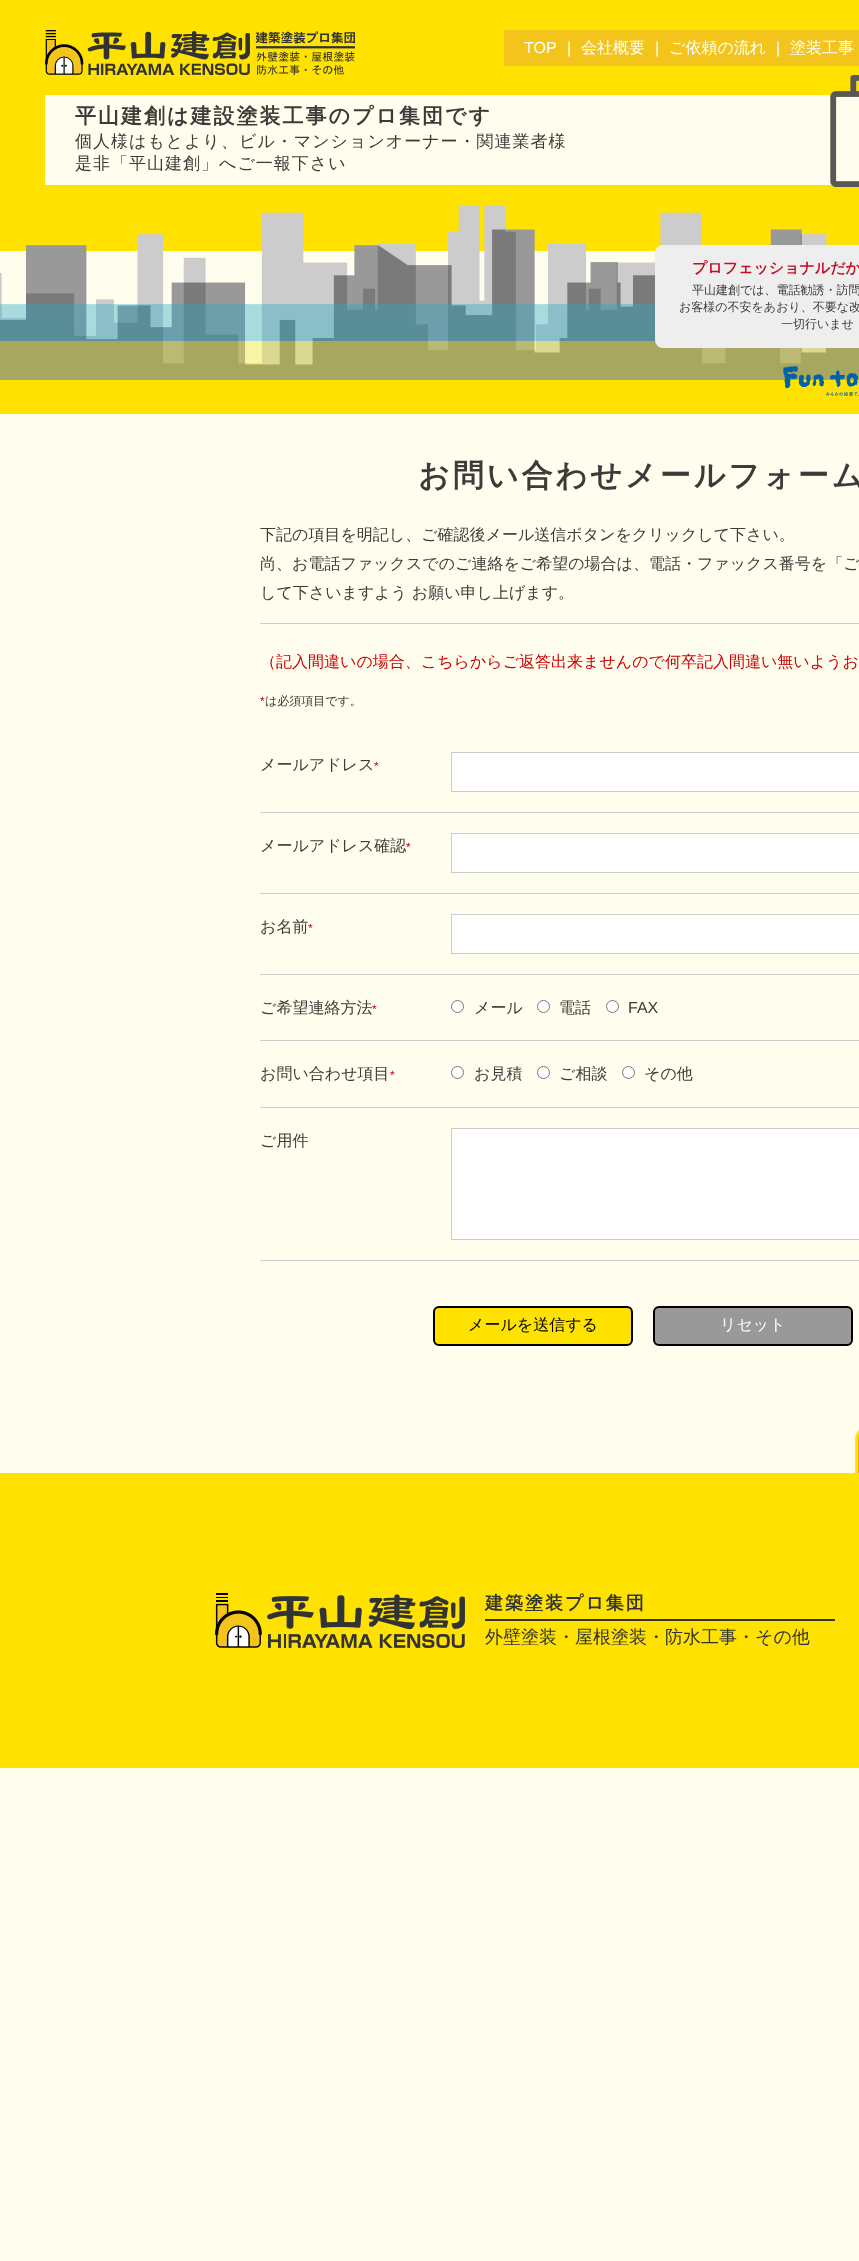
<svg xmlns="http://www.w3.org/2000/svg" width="859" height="2261">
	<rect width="100%" height="100%" fill="#FFFDED" />
	<rect x="0" y="0" width="859" height="414" fill="#FFE200" />
	<image x="45" y="30" width="310" height="45" href="assets/img1.png" />
	<rect x="504" y="30" width="355" height="36" fill="#F3C51C" />
	<g font-family="Liberation Sans" font-size="16" fill="#FFFFFF">
		<text x="524" y="53">TOP</text>
		<text x="567" y="53">|</text>
	</g>
	<text x="581" y="53" font-family="WenQuanYi Zen Hei" font-size="16" font-weight="500" fill="#FFFFFF">会社概要</text>
	<text x="655" y="53" font-family="Liberation Sans" font-size="16" fill="#FFFFFF">|</text>
	<text x="669" y="53" font-family="WenQuanYi Zen Hei" font-size="16" font-weight="500" fill="#FFFFFF">ご依頼の流れ</text>
	<text x="776" y="53" font-family="Liberation Sans" font-size="16" fill="#FFFFFF">|</text>
	<text x="790" y="53" font-family="WenQuanYi Zen Hei" font-size="16" font-weight="500" fill="#FFFFFF">塗装工事</text>
	<rect x="45" y="95" width="787" height="90" fill="#FFFDED" />
	<text x="75" y="123" font-family="WenQuanYi Zen Hei" font-size="21" font-weight="700" letter-spacing="2" fill="#3E3A39">平山建創は建設塗装工事のプロ集団です</text>
	<g font-family="WenQuanYi Zen Hei" font-size="17" font-weight="500" letter-spacing="1" fill="#3E3A39">
		<text x="75" y="147">個人様はもとより、ビル・マンションオーナー・関連業者様</text>
		<text x="75" y="169">是非「平山建創」へご一報下さい</text>
	</g>
	<image x="830" y="75" width="29" height="112" href="assets/img2.png" />
	<image x="0" y="205" width="859" height="175" href="assets/img3.png" />
	<rect x="655" y="245" width="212" height="103" rx="8" fill="#EEEEEF" />
	<text x="692" y="273" font-family="WenQuanYi Zen Hei" font-size="15" font-weight="700" fill="#C30D23">プロフェッショナルだか</text>
	<g font-family="WenQuanYi Zen Hei" font-size="12" font-weight="500" fill="#3E3A39">
		<text x="692" y="294">平山建創では、電話勧誘・訪問</text>
		<text x="679" y="311">お客様の不安をあおり、不要な改</text>
		<text x="781" y="328">一切行いませ</text>
	</g>
	<image x="783" y="366" width="76" height="30" href="assets/img4.png" />
	<text x="418" y="486" font-family="WenQuanYi Zen Hei" font-size="31" font-weight="700" letter-spacing="3" fill="#3E3A39">お問い合わせメールフォーム</text>
	<rect x="260" y="623" width="599" height="1" fill="#CCCCCC" />
	<g font-family="WenQuanYi Zen Hei" font-size="16" font-weight="500" fill="#3E3A39">
		<text x="260" y="540">下記の項目を明記し、ご確認後メール送信ボタンをクリックして下さい。</text>
		<text x="260" y="569">尚、お電話ファックスでのご連絡をご希望の場合は、電話・ファックス番号を「ご</text>
		<text x="260" y="598">して下さいますよう お願い申し上げます。</text>
	</g>
	<text x="260" y="667" font-family="WenQuanYi Zen Hei" font-size="16" font-weight="500" fill="#CC0000">（記入間違いの場合、こちらからご返答出来ませんので何卒記入間違い無いようお</text>
	<text x="260" y="705" font-family="Liberation Sans" font-size="12" fill="#CC0000">*</text>
	<text x="265" y="705" font-family="WenQuanYi Zen Hei" font-size="12" font-weight="500" fill="#3E3A39">は必須項目です。</text>
	<rect x="260" y="812" width="599" height="1" fill="#CCCCCC" />
	<text x="260" y="770" font-family="WenQuanYi Zen Hei" font-size="16" font-weight="500" fill="#3E3A39">メールアドレス</text>
	<text x="374" y="770" font-family="Liberation Sans" font-size="12" fill="#CC0000">*</text>
	<rect x="451.5" y="752.5" width="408" height="39" fill="#FFFFFF" stroke="#CCCCCC" />
	<rect x="260" y="893" width="599" height="1" fill="#CCCCCC" />
	<text x="260" y="851" font-family="WenQuanYi Zen Hei" font-size="16" font-weight="500" fill="#3E3A39">メールアドレス確認</text>
	<text x="406" y="851" font-family="Liberation Sans" font-size="12" fill="#CC0000">*</text>
	<rect x="451.5" y="833.5" width="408" height="39" fill="#FFFFFF" stroke="#CCCCCC" />
	<rect x="260" y="974" width="599" height="1" fill="#CCCCCC" />
	<text x="260" y="932" font-family="WenQuanYi Zen Hei" font-size="16" font-weight="500" fill="#3E3A39">お名前</text>
	<text x="308" y="932" font-family="Liberation Sans" font-size="12" fill="#CC0000">*</text>
	<rect x="451.5" y="914.5" width="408" height="39" fill="#FFFFFF" stroke="#CCCCCC" />
	<rect x="260" y="1040" width="599" height="1" fill="#CCCCCC" />
	<text x="260" y="1013" font-family="WenQuanYi Zen Hei" font-size="16" font-weight="500" fill="#3E3A39">ご希望連絡方法</text>
	<text x="372" y="1013" font-family="Liberation Sans" font-size="12" fill="#CC0000">*</text>
	<circle cx="457.5" cy="1006.5" r="6" fill="#FFFFFF" stroke="#767676" />
	<text x="474" y="1013" font-family="WenQuanYi Zen Hei" font-size="16" font-weight="500" fill="#3E3A39">メール</text>
	<circle cx="543.5" cy="1006.5" r="6" fill="#FFFFFF" stroke="#767676" />
	<text x="559" y="1013" font-family="WenQuanYi Zen Hei" font-size="16" font-weight="500" fill="#3E3A39">電話</text>
	<circle cx="612.5" cy="1006.5" r="6" fill="#FFFFFF" stroke="#767676" />
	<text x="628" y="1013" font-family="Liberation Sans" font-size="16" fill="#3E3A39">FAX</text>
	<rect x="260" y="1107" width="599" height="1" fill="#CCCCCC" />
	<text x="260" y="1079" font-family="WenQuanYi Zen Hei" font-size="16" font-weight="500" fill="#3E3A39">お問い合わせ項目</text>
	<text x="390" y="1079" font-family="Liberation Sans" font-size="12" fill="#CC0000">*</text>
	<circle cx="457.5" cy="1072.5" r="6" fill="#FFFFFF" stroke="#767676" />
	<text x="474" y="1079" font-family="WenQuanYi Zen Hei" font-size="16" font-weight="500" fill="#3E3A39">お見積</text>
	<circle cx="543.5" cy="1072.5" r="6" fill="#FFFFFF" stroke="#767676" />
	<text x="559" y="1079" font-family="WenQuanYi Zen Hei" font-size="16" font-weight="500" fill="#3E3A39">ご相談</text>
	<circle cx="628.5" cy="1072.5" r="6" fill="#FFFFFF" stroke="#767676" />
	<text x="644" y="1079" font-family="WenQuanYi Zen Hei" font-size="16" font-weight="500" fill="#3E3A39">その他</text>
	<rect x="260" y="1260" width="599" height="1" fill="#CCCCCC" />
	<text x="260" y="1146" font-family="WenQuanYi Zen Hei" font-size="16" font-weight="500" fill="#3E3A39">ご用件</text>
	<rect x="451.5" y="1128.5" width="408" height="111" fill="#FFFFFF" stroke="#CCCCCC" />
	<rect x="434" y="1307" width="198" height="38" rx="5" fill="#FFE200" stroke="#000000" stroke-width="2" />
	<text x="468" y="1330" font-family="WenQuanYi Zen Hei" font-size="16" font-weight="500" fill="#000000">メールを送信する</text>
	<rect x="654" y="1307" width="198" height="38" rx="5" fill="#999999" stroke="#000000" stroke-width="2" />
	<text x="720" y="1330" font-family="WenQuanYi Zen Hei" font-size="16" font-weight="500" fill="#FFFFFF">リセット</text>
	<image x="855" y="1430" width="4" height="43" href="assets/img5.png" />
	<rect x="0" y="1473" width="859" height="295" fill="#FFE200" />
	<image x="215" y="1593" width="250" height="55" href="assets/img6.png" />
	<rect x="485" y="1619" width="350" height="2" fill="#323333" />
	<text x="485" y="1609" font-family="WenQuanYi Zen Hei" font-size="18" font-weight="700" letter-spacing="2" fill="#323333">建築塗装プロ集団</text>
	<text x="485" y="1643" font-family="WenQuanYi Zen Hei" font-size="18" font-weight="500" fill="#323333">外壁塗装・屋根塗装・防水工事・その他</text>
</svg>
